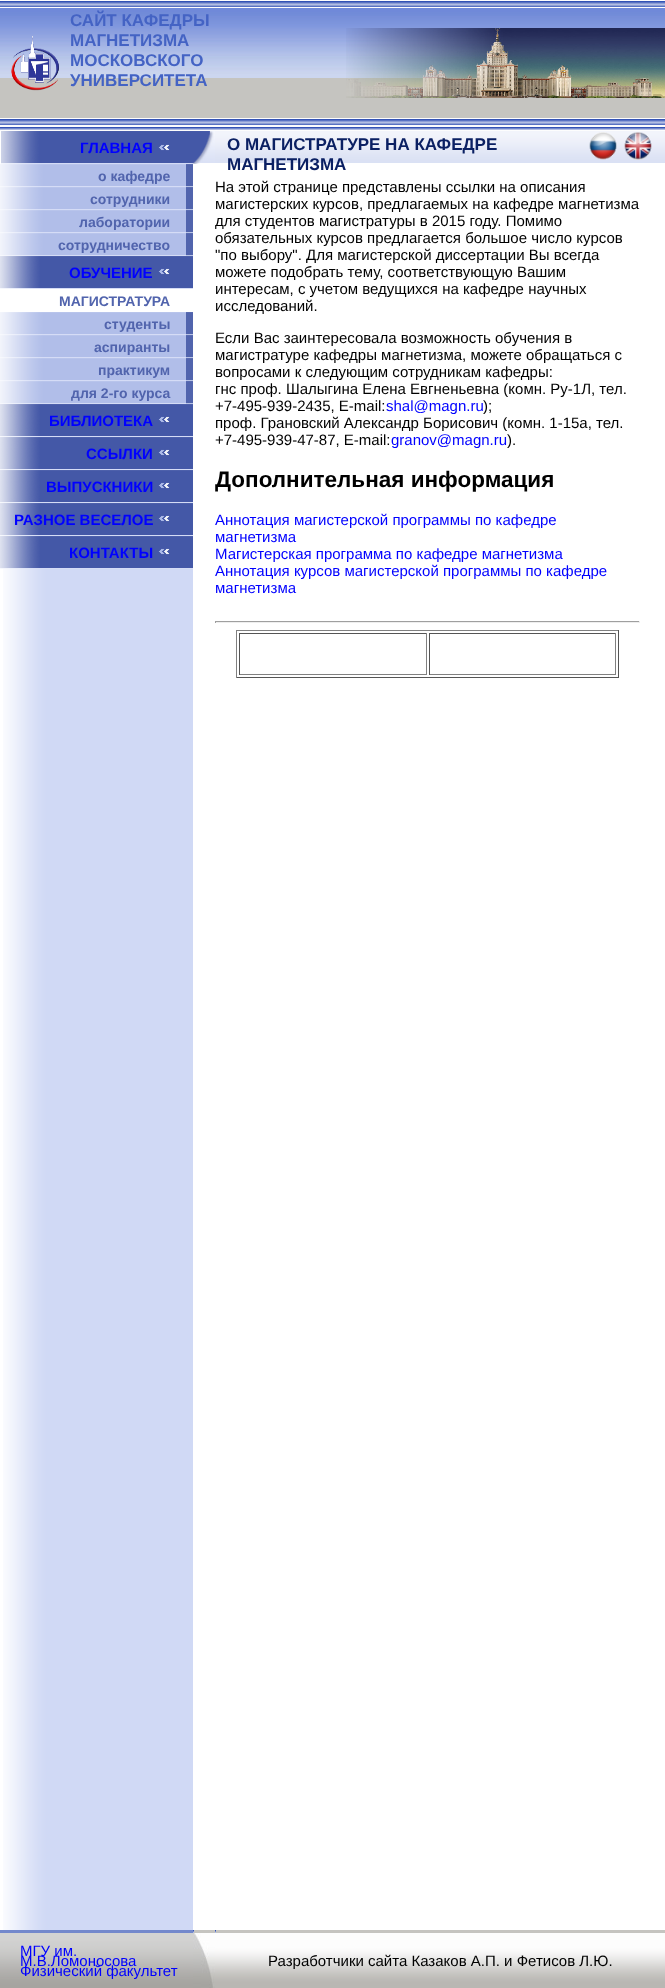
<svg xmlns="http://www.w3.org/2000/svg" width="665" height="1988">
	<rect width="100%" height="100%" fill="#C5C4C0" />
	<image x="0" y="0" width="665" height="8" href="assets/img1.png" />
	<image x="0" y="8" width="70" height="70" href="assets/img2.png" />
	<image x="11" y="36" width="48" height="55" href="assets/img3.png" />
	<image x="70" y="8" width="1" height="70" href="assets/img4.png" />
	<image x="71" y="8" width="190" height="70" href="assets/img5.png" />
	<g font-family="Liberation Sans" font-size="17" font-weight="700" fill="#4463C4">
		<text x="70" y="26">САЙТ КАФЕДРЫ</text>
		<text x="70" y="46">МАГНЕТИЗМА</text>
		<text x="70" y="66">МОСКОВСКОГО</text>
		<text x="70" y="86">УНИВЕРСИТЕТА</text>
	</g>
	<image x="261" y="8" width="404" height="70" href="assets/img6.png" />
	<image x="346" y="28" width="319" height="70" href="assets/img7.png" />
	<image x="0" y="118" width="665" height="8" href="assets/img1.png" />
	<image x="0" y="126" width="665" height="5" href="assets/img8.png" />
	<rect x="0" y="131" width="665" height="1799" fill="#FFFFFF" />
	<image x="1" y="131" width="214" height="33" href="assets/img9.png" />
	<text x="80" y="153" font-family="Liberation Sans" font-size="15" font-weight="700" fill="#0000FF">ГЛАВНАЯ</text>
	<image x="0" y="164" width="193" height="23" href="assets/img10.png" />
	<text x="98" y="181" font-family="Liberation Sans" font-size="14" font-weight="700" fill="#5164AD">о кафедре</text>
	<image x="0" y="187" width="193" height="23" href="assets/img10.png" />
	<text x="90" y="204" font-family="Liberation Sans" font-size="14" font-weight="700" fill="#5164AD">сотрудники</text>
	<image x="0" y="210" width="193" height="23" href="assets/img10.png" />
	<text x="79" y="227" font-family="Liberation Sans" font-size="14" font-weight="700" fill="#5164AD">лаборатории</text>
	<image x="0" y="233" width="193" height="23" href="assets/img10.png" />
	<text x="58" y="250" font-family="Liberation Sans" font-size="14" font-weight="700" fill="#5164AD">сотрудничество</text>
	<image x="0" y="256" width="193" height="33" href="assets/img11.png" />
	<text x="69" y="278" font-family="Liberation Sans" font-size="15" font-weight="700" fill="#0000FF">ОБУЧЕНИЕ</text>
	<text x="59" y="306" font-family="Liberation Sans" font-size="14" font-weight="700" fill="#5164AD">МАГИСТРАТУРА</text>
	<image x="0" y="312" width="193" height="23" href="assets/img10.png" />
	<text x="104" y="329" font-family="Liberation Sans" font-size="14" font-weight="700" fill="#5164AD">студенты</text>
	<image x="0" y="335" width="193" height="23" href="assets/img10.png" />
	<text x="94" y="352" font-family="Liberation Sans" font-size="14" font-weight="700" fill="#5164AD">аспиранты</text>
	<image x="0" y="358" width="193" height="23" href="assets/img10.png" />
	<text x="98" y="375" font-family="Liberation Sans" font-size="14" font-weight="700" fill="#5164AD">практикум</text>
	<image x="0" y="381" width="193" height="23" href="assets/img10.png" />
	<text x="71" y="398" font-family="Liberation Sans" font-size="14" font-weight="700" fill="#5164AD">для 2-го курса</text>
	<image x="0" y="404" width="193" height="33" href="assets/img11.png" />
	<text x="49" y="426" font-family="Liberation Sans" font-size="15" font-weight="700" fill="#0000FF">БИБЛИОТЕКА</text>
	<image x="0" y="437" width="193" height="33" href="assets/img11.png" />
	<text x="86" y="459" font-family="Liberation Sans" font-size="15" font-weight="700" fill="#0000FF">ССЫЛКИ</text>
	<image x="0" y="470" width="193" height="33" href="assets/img11.png" />
	<text x="46" y="492" font-family="Liberation Sans" font-size="15" font-weight="700" fill="#0000FF">ВЫПУСКНИКИ</text>
	<image x="0" y="503" width="193" height="33" href="assets/img11.png" />
	<text x="14" y="525" font-family="Liberation Sans" font-size="15" font-weight="700" fill="#0000FF">РАЗНОЕ ВЕСЕЛОЕ</text>
	<image x="0" y="536" width="193" height="33" href="assets/img11.png" />
	<text x="69" y="558" font-family="Liberation Sans" font-size="15" font-weight="700" fill="#0000FF">КОНТАКТЫ</text>
	<image x="3" y="569" width="190" height="1361" href="assets/img12.png" />
	<image x="215" y="131" width="373" height="32" href="assets/img13.png" />
	<g font-family="Liberation Sans" font-size="17" font-weight="700" fill="#0B2063">
		<text x="227" y="150">О МАГИСТРАТУРЕ НА КАФЕДРЕ</text>
		<text x="227" y="170">МАГНЕТИЗМА</text>
	</g>
	<image x="588" y="131" width="77" height="32" href="assets/img14.png" />
	<image x="589" y="132" width="28" height="28" href="assets/img15.png" />
	<image x="624" y="132" width="28" height="28" href="assets/img16.png" />
	<g font-family="Liberation Sans" font-size="15" fill="#000000">
		<text x="215" y="192">На этой странице представлены ссылки на описания</text>
		<text x="215" y="209">магистерских курсов, предлагаемых на кафедре магнетизма</text>
		<text x="215" y="226">для студентов магистратуры в 2015 году. Помимо</text>
		<text x="215" y="243">обязательных курсов предлагается большое число курсов</text>
		<text x="215" y="260">"по выбору". Для магистерской диссертации Вы всегда</text>
		<text x="215" y="277">можете подобрать тему, соответствующую Вашим</text>
		<text x="215" y="294">интересам, с учетом ведущихся на кафедре научных</text>
		<text x="215" y="311">исследований.</text>
		<text x="215" y="343">Если Вас заинтересовала возможность обучения в</text>
		<text x="215" y="360">магистратуре кафедры магнетизма, можете обращаться с</text>
		<text x="215" y="377">вопросами к следующим сотрудникам кафедры:</text>
		<text x="215" y="394">гнс проф. Шалыгина Елена Евгненьевна (комн. Ру-1Л, тел.</text>
		<text x="215" y="411">+7-495-939-2435, E-mail:</text>
	</g>
	<text x="386" y="411" font-family="Liberation Sans" font-size="15" fill="#0000FF">shal@magn.ru</text>
	<g font-family="Liberation Sans" font-size="15" fill="#000000">
		<text x="483" y="411">);</text>
		<text x="215" y="428">проф. Грановский Александр Борисович (комн. 1-15а, тел.</text>
		<text x="215" y="445">+7-495-939-47-87, E-mail:</text>
	</g>
	<text x="391" y="445" font-family="Liberation Sans" font-size="15" fill="#0000FF">granov@magn.ru</text>
	<text x="507" y="445" font-family="Liberation Sans" font-size="15" fill="#000000">).</text>
	<text x="215" y="487" font-family="Liberation Sans" font-size="22.5" font-weight="700" fill="#000000">Дополнительная информация</text>
	<g font-family="Liberation Sans" font-size="15" fill="#0000FF">
		<text x="215" y="525">Аннотация магистерской программы по кафедре</text>
		<text x="215" y="542">магнетизма</text>
		<text x="215" y="559">Магистерская программа по кафедре магнетизма</text>
		<text x="215" y="576">Аннотация курсов магистерской программы по кафедре</text>
		<text x="215" y="593">магнетизма</text>
	</g>
	<rect x="215" y="621" width="425" height="1" fill="#9F9F9F" />
	<rect x="639" y="621" width="1" height="2" fill="#EEEEEE" />
	<rect x="215" y="622" width="425" height="1" fill="#EEEEEE" />
	<rect x="215" y="621" width="1" height="2" fill="#9F9F9F" />
	<rect x="236" y="630" width="383" height="1" fill="#808080" />
	<rect x="618" y="630" width="1" height="48" fill="#555555" />
	<rect x="236" y="677" width="383" height="1" fill="#555555" />
	<rect x="236" y="630" width="1" height="48" fill="#808080" />
	<rect x="239" y="633" width="188" height="1" fill="#555555" />
	<rect x="426" y="633" width="1" height="42" fill="#808080" />
	<rect x="239" y="674" width="188" height="1" fill="#808080" />
	<rect x="239" y="633" width="1" height="42" fill="#555555" />
	<rect x="429" y="633" width="187" height="1" fill="#555555" />
	<rect x="615" y="633" width="1" height="42" fill="#808080" />
	<rect x="429" y="674" width="187" height="1" fill="#808080" />
	<rect x="429" y="633" width="1" height="42" fill="#555555" />
	<rect x="0" y="1930" width="193" height="3" fill="#7388CC" />
	<image x="193" y="1930" width="1" height="3" href="assets/img17.png" />
	<image x="215" y="1930" width="1" height="3" href="assets/img17.png" />
	<image x="0" y="1933" width="193" height="55" href="assets/img18.png" />
	<g font-family="Liberation Sans" font-size="15" fill="#0000FF">
		<text x="20" y="1956">МГУ им.</text>
		<text x="20" y="1966">М.В.Ломоносова</text>
		<text x="20" y="1976">Физический факультет</text>
	</g>
	<image x="193" y="1933" width="22" height="55" href="assets/img19.png" />
	<image x="215" y="1933" width="450" height="55" href="assets/img20.png" />
	<text x="268" y="1966" font-family="Liberation Sans" font-size="15" fill="#000000">Разработчики сайта Казаков А.П. и Фетисов Л.Ю.</text>
</svg>
